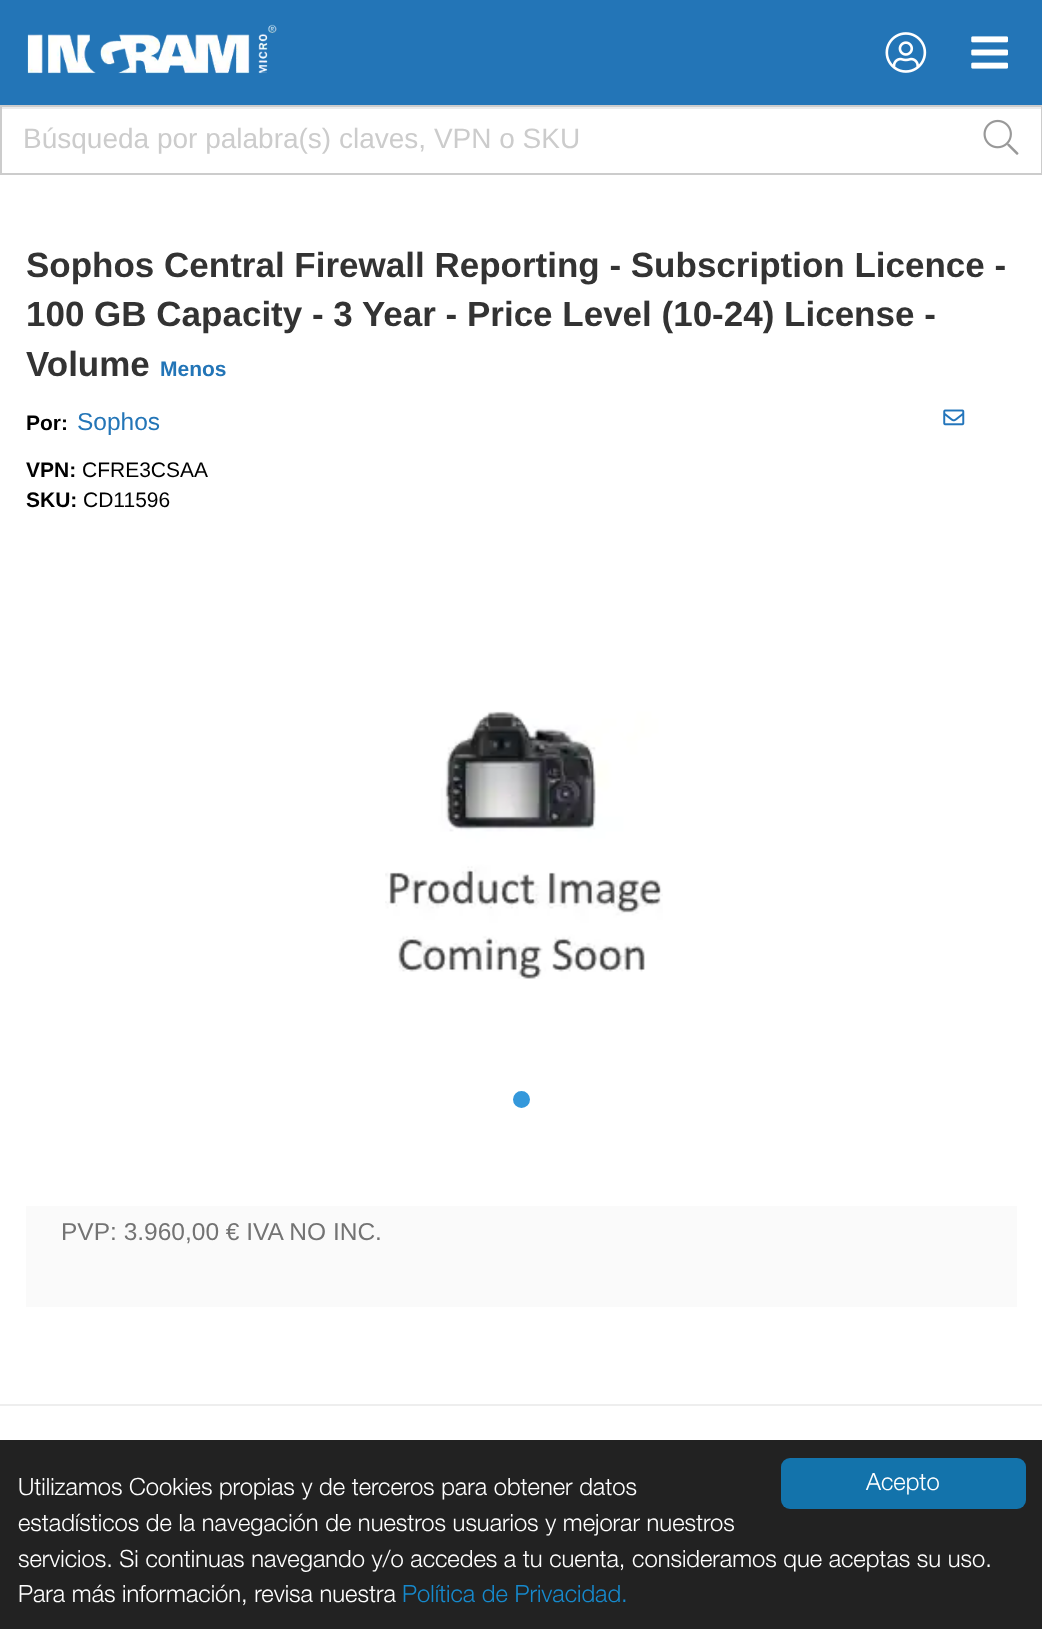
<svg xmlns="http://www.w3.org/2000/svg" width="1042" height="1629">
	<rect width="100%" height="100%" fill="#FFFFFF" />
	<rect x="0" y="0" width="1042" height="105" fill="#2375B7" />
	<image x="27" y="24" width="250" height="50" href="assets/img1.png" />
	<image x="885" y="32" width="42" height="41" href="assets/img2.png" />
	<image x="971" y="36" width="37" height="33" href="assets/img3.png" />
	<rect x="2" y="107" width="1039" height="2" fill="#ECECEC" />
	<rect x="1" y="106" width="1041" height="68" fill="none" stroke="#CCCCCC" stroke-width="2" />
	<text x="23" y="148" font-family="Liberation Sans" font-size="28" fill="#CCCCCC">Búsqueda por palabra(s) claves, VPN o SKU</text>
	<image x="983" y="119" width="36" height="36" href="assets/img4.png" />
	<g font-family="Liberation Sans" font-size="35" font-weight="700" fill="#333333">
		<text x="26" y="277">Sophos Central Firewall Reporting - Subscription Licence -</text>
		<text x="26" y="326">100 GB Capacity - 3 Year - Price Level (10-24) License -</text>
		<text x="26" y="376">Volume</text>
	</g>
	<text x="160" y="376" font-family="Liberation Sans" font-size="21" font-weight="700" fill="#2375B7">Menos</text>
	<text x="26" y="430" font-family="Liberation Sans" font-size="21" font-weight="700" fill="#000000">Por:</text>
	<text x="77" y="430" font-family="Liberation Sans" font-size="24.5" fill="#2375B7">Sophos</text>
	<text x="26" y="477" font-family="Liberation Sans" font-size="21" font-weight="700" fill="#000000">VPN:</text>
	<text x="82" y="477" font-family="Liberation Sans" font-size="21" fill="#000000">CFRE3CSAA</text>
	<text x="26" y="507" font-family="Liberation Sans" font-size="21" font-weight="700" fill="#000000">SKU:</text>
	<text x="83" y="507" font-family="Liberation Sans" font-size="21" fill="#000000">CD11596</text>
	<image x="943" y="409" width="22" height="17" href="assets/img5.png" />
	<image x="385" y="711" width="278" height="268" href="assets/img6.png" />
	<circle cx="521.5" cy="1099.5" r="9.5" fill="#3498DB" stroke="#FFFFFF" stroke-width="2" />
	<rect x="26" y="1206" width="991" height="101" fill="#FAFAFA" />
	<text x="61" y="1240" font-family="Liberation Sans" font-size="24.5" fill="#737373">PVP: 3.960,00 € IVA NO INC.</text>
	<rect x="0" y="1404" width="1042" height="2" fill="#EEEEEE" />
	<rect x="0" y="1440" width="1042" height="189" fill="#222222" />
	<rect x="781" y="1458" width="245" height="51" rx="9" fill="#1373AB" />
	<g font-family="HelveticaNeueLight" font-size="23.8" font-weight="300" fill="#FFFFFF">
		<text x="866" y="1490">Acepto</text>
		<text x="18" y="1495">Utilizamos Cookies propias y de terceros para obtener datos</text>
		<text x="18" y="1531">estadísticos de la navegación de nuestros usuarios y mejorar nuestros</text>
		<text x="18" y="1567">servicios. Si continuas navegando y/o accedes a tu cuenta, consideramos que aceptas su uso.</text>
		<text x="18" y="1602">Para más información, revisa nuestra</text>
	</g>
	<text x="402" y="1602" font-family="HelveticaNeueLight" font-size="23.8" font-weight="300" fill="#1689CC">Política de Privacidad.</text>
</svg>
